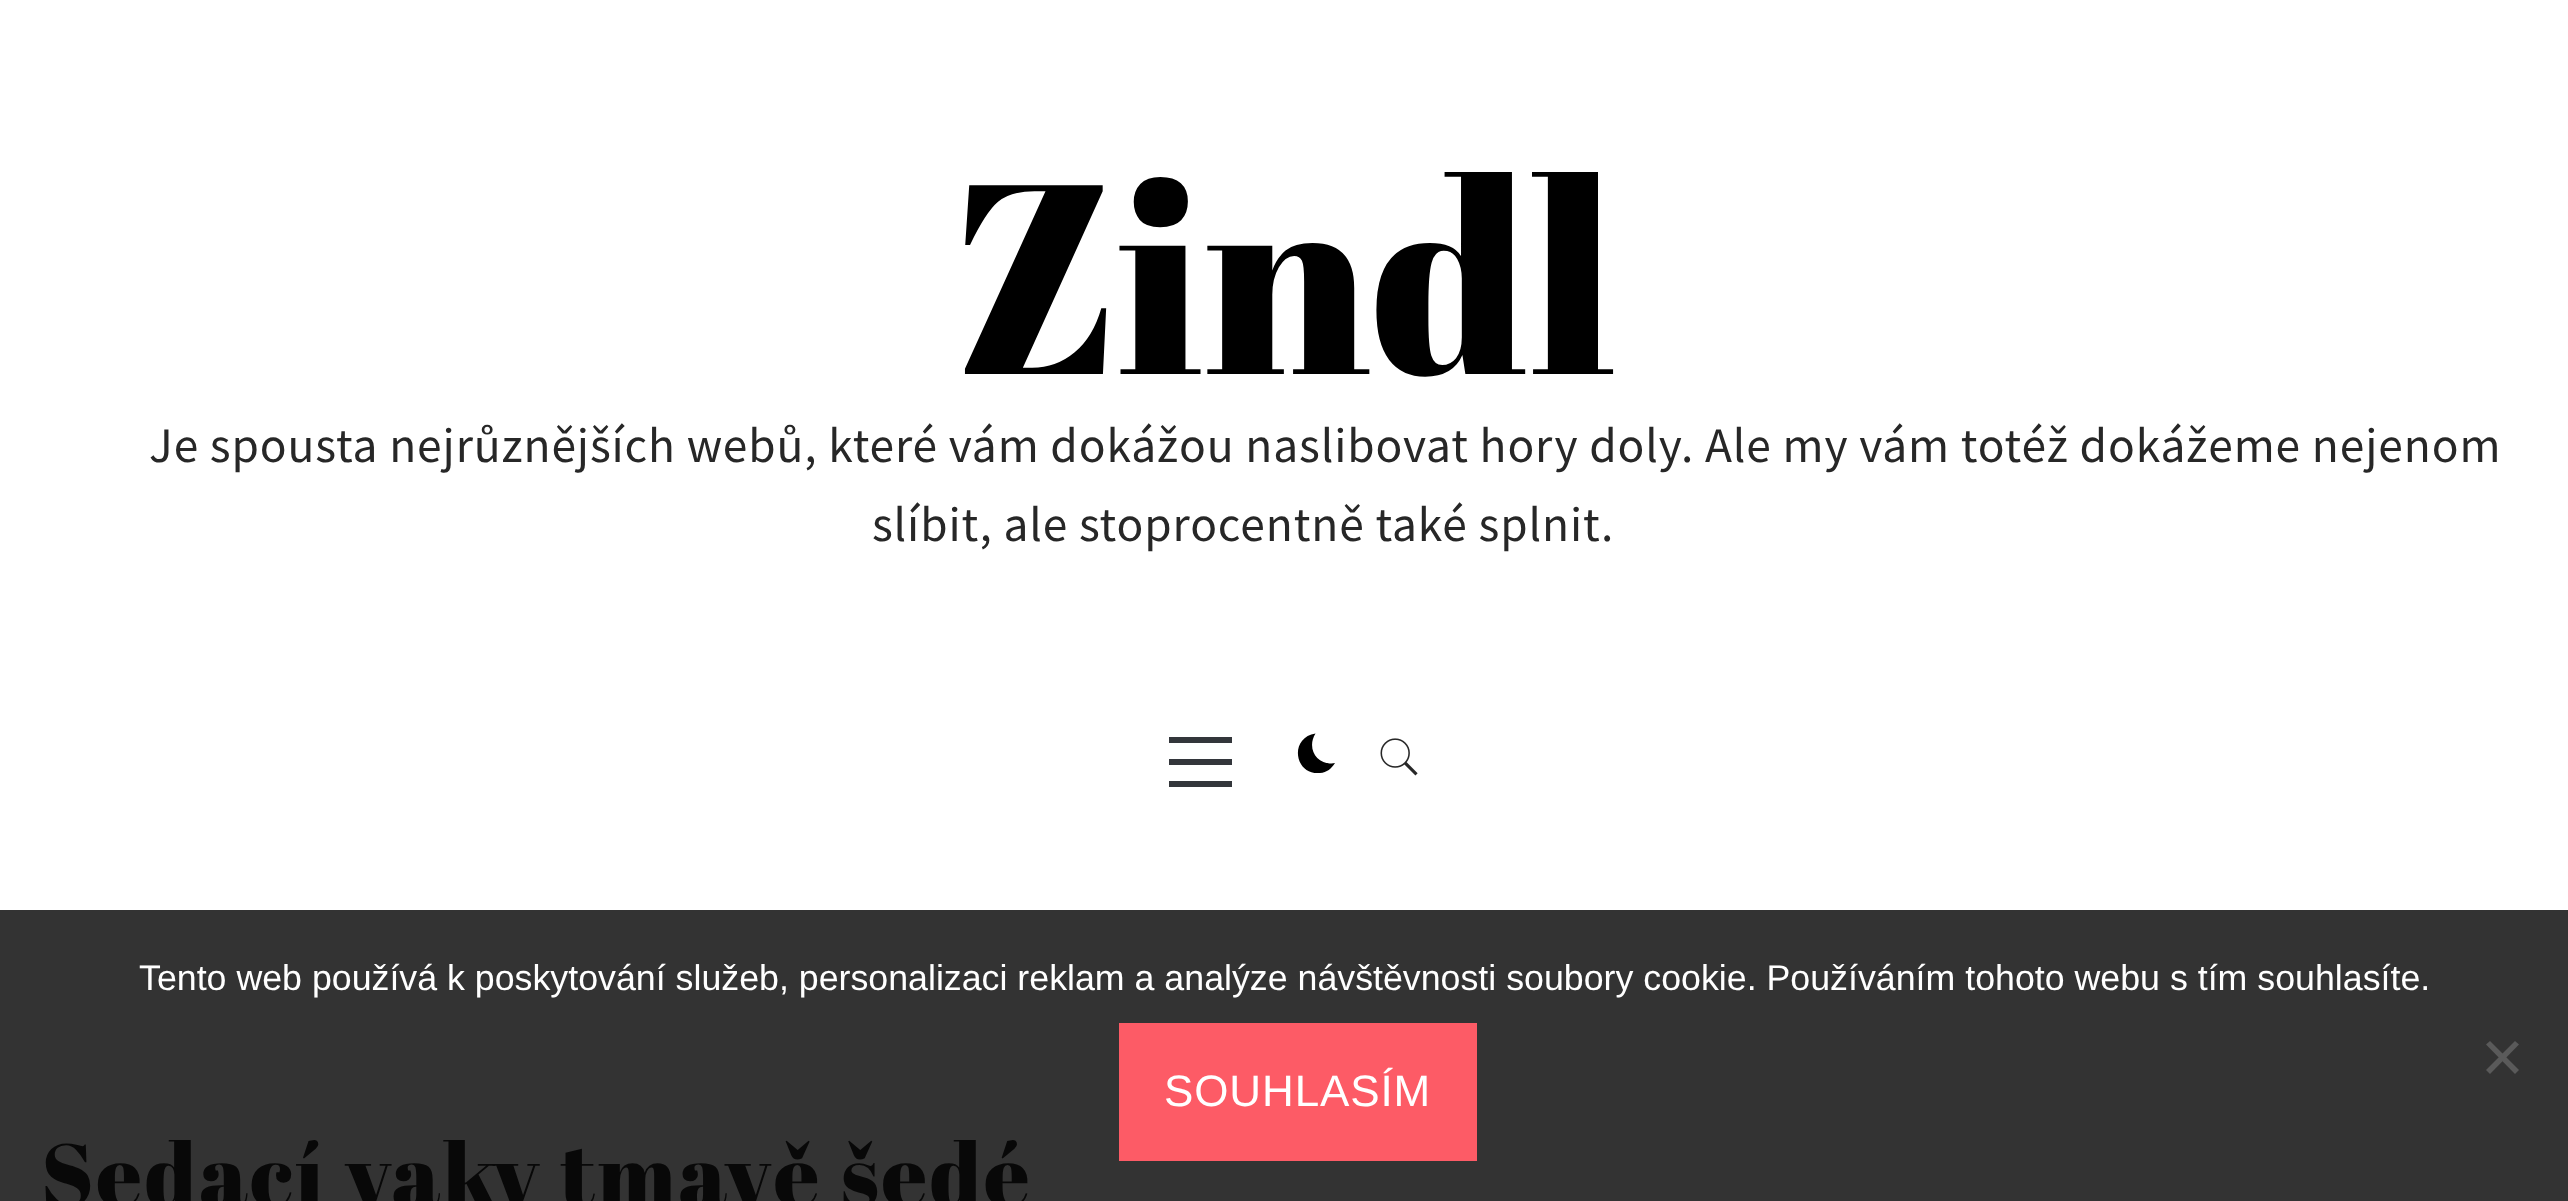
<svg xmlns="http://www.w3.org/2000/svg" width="2568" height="1201">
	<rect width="100%" height="100%" fill="#FFFFFF" />
	<rect x="0" y="910" width="2568" height="291" fill="#333333" />
	<text x="952" y="374" font-family="Abril Fatface" font-size="269.5" letter-spacing="0.88" fill="#000000">Zindl</text>
	<g font-family="Source Sans Pro" font-size="49.5" letter-spacing="0.88" fill="#272727">
		<text x="149" y="462">Je spousta nejrůznějších webů, které vám dokážou naslibovat hory doly. Ale my vám totéž dokážeme nejenom</text>
		<text x="872" y="541">slíbit, ale stoprocentně také splnit.</text>
	</g>
	<rect x="1169" y="759" width="63" height="6" fill="#33363B" />
	<rect x="1169" y="737" width="63" height="6" fill="#33363B" />
	<rect x="1169" y="781" width="63" height="6" fill="#33363B" />
	<path d="M1331.5 763.5L1335 763C1331.5 768.5 1327 772.5 1320 773C1294 775.5 1289 737.5 1315.5 733.5C1307 747 1315 763.5 1331.5 763.5Z" fill="#000000" />
	<image x="1380" y="738" width="38" height="38" href="assets/img1.png" />
	<text x="41" y="1206" font-family="Abril Fatface" font-size="88" letter-spacing="2.75" fill="#080808">Sedací vaky tmavě šedé</text>
	<text x="139" y="990" font-family="Liberation Sans" font-size="35.75" fill="#FFFFFF">Tento web používá k poskytování služeb, personalizaci reklam a analýze návštěvnosti soubory cookie. Používáním tohoto webu s tím souhlasíte.</text>
	<path d="M2515 1041L2519 1044.5L2490 1074L2486 1070Z" fill="#5A5A5A" />
	<path d="M2486 1044.5L2490 1041L2519 1070L2515 1074Z" fill="#5A5A5A" />
	<rect x="1119" y="1023" width="358" height="138" fill="#FD5B66" />
	<text x="1164" y="1106" font-family="Liberation Sans" font-size="44" letter-spacing="0.88" fill="#FFFFFF">SOUHLASÍM</text>
</svg>
